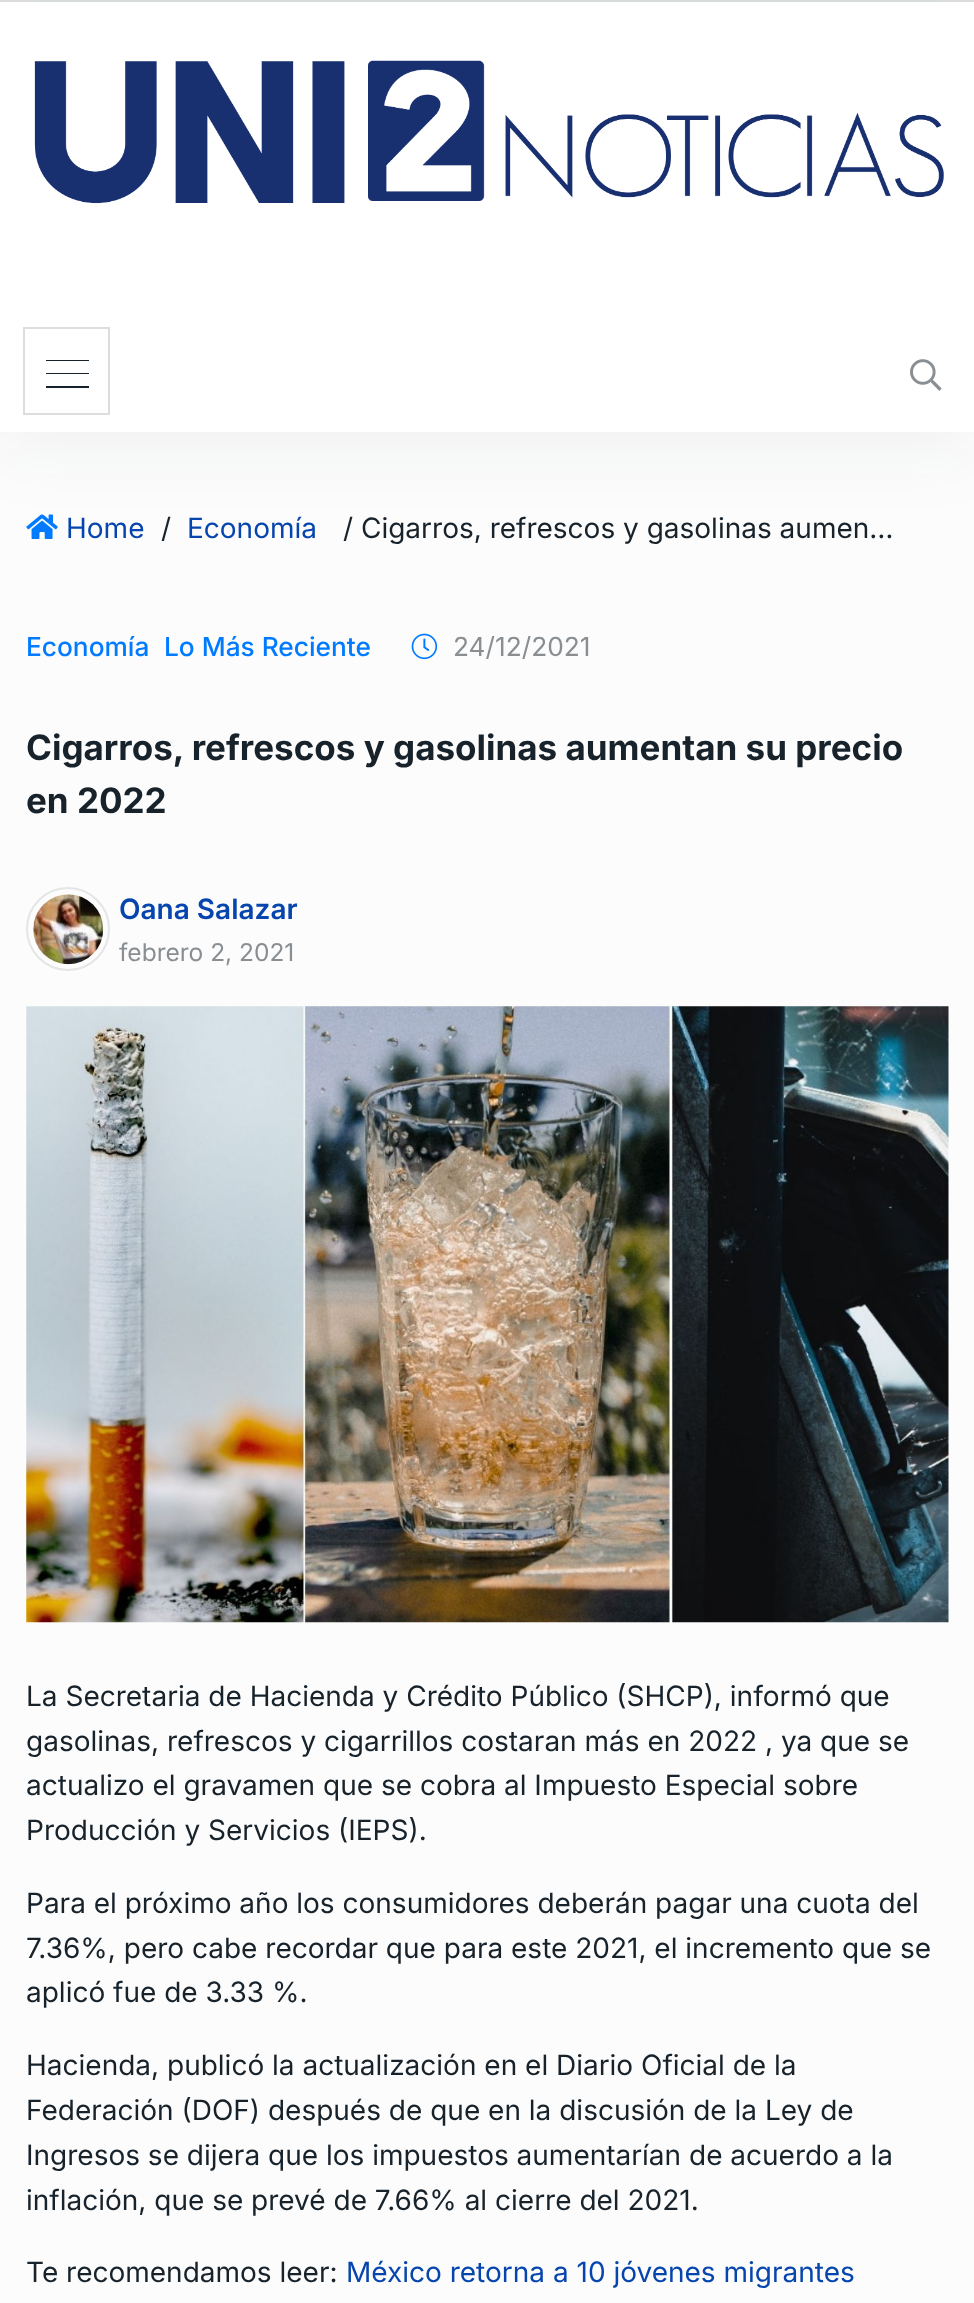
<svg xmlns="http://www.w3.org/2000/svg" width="974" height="2303">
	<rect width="100%" height="100%" fill="#FCFCFC" />
	<rect x="0" y="0" width="974" height="2" fill="#DCDEDF" />
	<image x="26" y="514" width="32" height="25" href="assets/img3.png" />
	<rect x="0" y="19" width="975" height="431" fill="#17222B" fill-opacity="0.05" filter="blur(35px)" />
	<rect x="0" y="2" width="974" height="430" fill="#FFFFFF" />
	<image x="34" y="60" width="910" height="144" href="assets/img1.png" />
	<rect x="24" y="328" width="85" height="86" fill="none" stroke="#DDDDDD" stroke-width="2" />
	<path d="M46 360V361H89V360ZM46 373V374H89V373ZM46 386V388H89V386Z" fill="#17222B" />
	<image x="910" y="359" width="32" height="32" href="assets/img2.png" />
	<text x="66" y="538" font-family="Inter" font-size="28" fill="#0645AD">Home</text>
	<text x="161" y="538" font-family="Inter" font-size="28" fill="#17222B">/</text>
	<text x="187" y="538" font-family="Inter" font-size="28" fill="#0645AD">Economía</text>
	<text x="343" y="538" font-family="Inter" font-size="28" fill="#17222B">/ Cigarros, refrescos y gasolinas aumen…</text>
	<g font-family="Inter" font-size="26.25" font-weight="500" fill="#007BFF">
		<text x="26" y="656">Economía</text>
		<text x="164" y="656">Lo Más Reciente</text>
	</g>
	<image x="411" y="633" width="27" height="27" href="assets/img4.png" />
	<text x="453" y="656" font-family="Inter" font-size="26.25" fill="#888E92">24/12/2021</text>
	<g font-family="Inter" font-size="35" font-weight="700" fill="#17222B">
		<text x="26" y="760">Cigarros, refrescos y gasolinas aumentan su precio</text>
		<text x="26" y="813">en 2022</text>
	</g>
	<circle cx="68" cy="929" r="41" fill="none" stroke="#E4E5E6" stroke-width="2" />
	<image x="33" y="894" width="71" height="71" href="assets/img5.png" />
	<text x="119" y="919" font-family="Inter" font-size="28" font-weight="600" fill="#0645AD">Oana Salazar</text>
	<text x="119" y="961" font-family="Inter" font-size="24.5" fill="#888E92">febrero 2, 2021</text>
	<image x="26" y="1006" width="923" height="617" href="assets/img6.png" />
	<g font-family="Inter" font-size="28" fill="#17222B">
		<text x="26" y="1706">La Secretaria de Hacienda y Crédito Público (SHCP), informó que</text>
		<text x="26" y="1751">gasolinas, refrescos y cigarrillos costaran más en 2022 , ya que se</text>
		<text x="26" y="1795">actualizo el gravamen que se cobra al Impuesto Especial sobre</text>
		<text x="26" y="1840">Producción y Servicios (IEPS).</text>
		<text x="26" y="1913">Para el próximo año los consumidores deberán pagar una cuota del</text>
		<text x="26" y="1958">7.36%, pero cabe recordar que para este 2021, el incremento que se</text>
		<text x="26" y="2002">aplicó fue de 3.33 %.</text>
		<text x="26" y="2075">Hacienda, publicó la actualización en el Diario Oficial de la</text>
		<text x="26" y="2120">Federación (DOF) después de que en la discusión de la Ley de</text>
		<text x="26" y="2165">Ingresos se dijera que los impuestos aumentarían de acuerdo a la</text>
		<text x="26" y="2210">inflación, que se prevé de 7.66% al cierre del 2021.</text>
		<text x="26" y="2282">Te recomendamos leer:</text>
	</g>
	<text x="346" y="2282" font-family="Inter" font-size="28" fill="#0645AD">México retorna a 10 jóvenes migrantes</text>
</svg>
